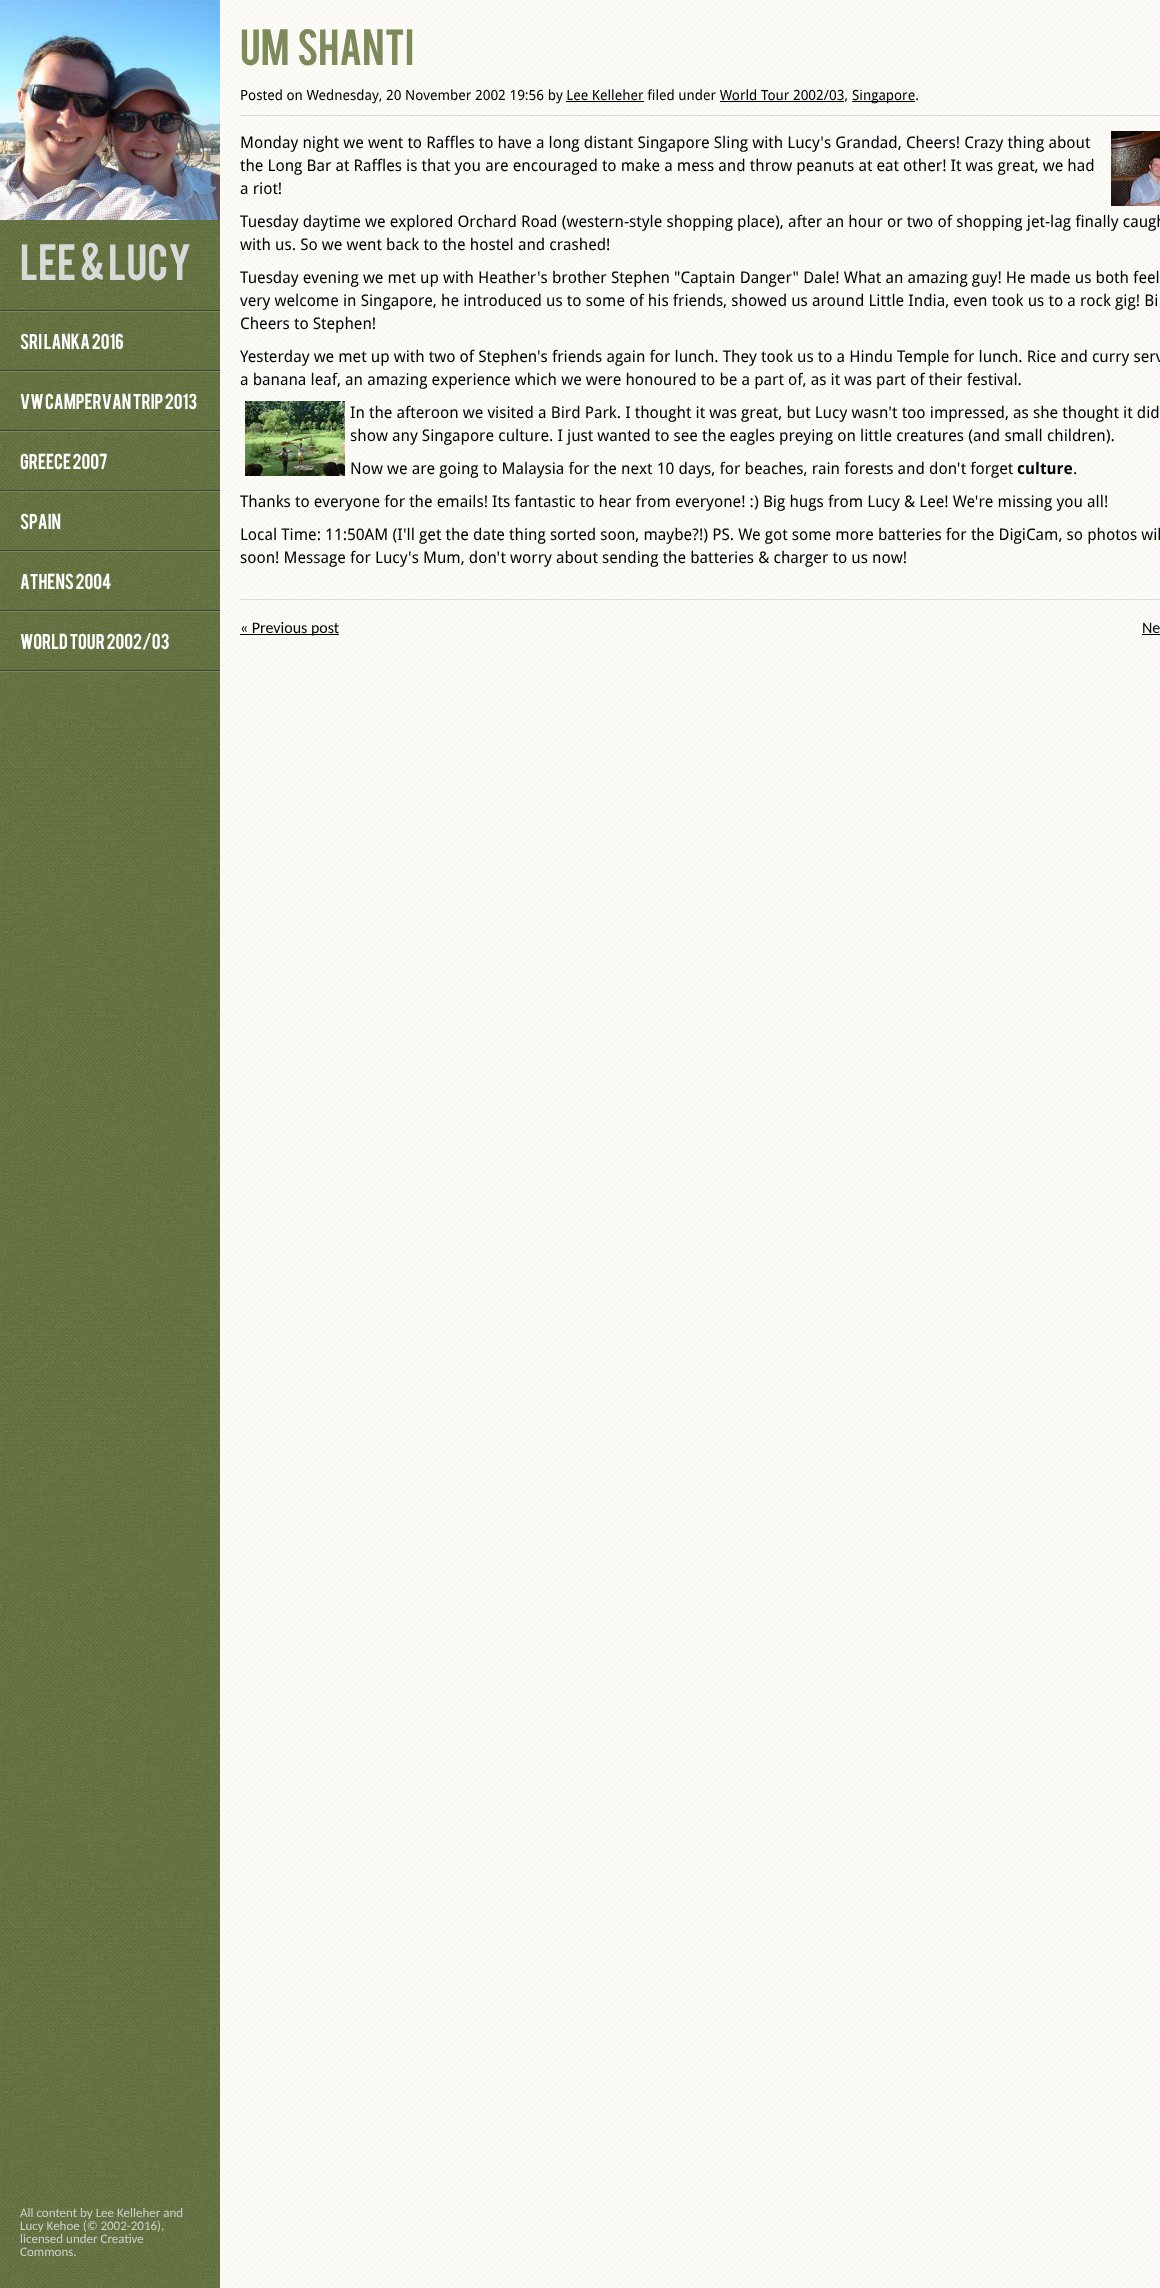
<svg xmlns="http://www.w3.org/2000/svg" width="1160" height="2288">
	<rect width="100%" height="100%" fill="#FFFFFF" />
	<image x="220" y="0" width="940" height="2288" href="assets/img1.png" />
	<image x="0" y="220" width="220" height="2068" href="assets/img2.png" />
	<image x="0" y="0" width="220" height="220" href="assets/img3.png" />
	<text x="20" y="280" font-family="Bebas" font-size="40" fill="#D9D9D9">Lee &amp; Lucy</text>
	<rect x="0" y="310" width="220" height="1" fill="#3F3F3F" />
	<rect x="0" y="671" width="220" height="1" fill="#7D8B5A" />
	<rect x="0" y="311" width="220" height="1" fill="#7D8B5A" />
	<rect x="0" y="370" width="220" height="1" fill="#3F3F3F" />
	<text x="20" y="349" font-family="Bebas" font-size="17" fill="#FFFFFF">Sri Lanka 2016</text>
	<rect x="0" y="371" width="220" height="1" fill="#7D8B5A" />
	<rect x="0" y="430" width="220" height="1" fill="#3F3F3F" />
	<text x="20" y="409" font-family="Bebas" font-size="17" fill="#FFFFFF">VW Campervan Trip 2013</text>
	<rect x="0" y="431" width="220" height="1" fill="#7D8B5A" />
	<rect x="0" y="490" width="220" height="1" fill="#3F3F3F" />
	<text x="20" y="469" font-family="Bebas" font-size="17" fill="#FFFFFF">Greece 2007</text>
	<rect x="0" y="491" width="220" height="1" fill="#7D8B5A" />
	<rect x="0" y="550" width="220" height="1" fill="#3F3F3F" />
	<text x="20" y="529" font-family="Bebas" font-size="17" fill="#FFFFFF">Spain</text>
	<rect x="0" y="551" width="220" height="1" fill="#7D8B5A" />
	<rect x="0" y="610" width="220" height="1" fill="#3F3F3F" />
	<text x="20" y="589" font-family="Bebas" font-size="17" fill="#FFFFFF">Athens 2004</text>
	<rect x="0" y="611" width="220" height="1" fill="#7D8B5A" />
	<rect x="0" y="670" width="220" height="1" fill="#3F3F3F" />
	<text x="20" y="649" font-family="Bebas" font-size="17" fill="#FFFFFF">World Tour 2002/03</text>
	<text x="240" y="65" word-spacing="4" font-family="Bebas" font-size="40" fill="#7D8B5A">Um Shanti</text>
	<rect x="240" y="115" width="920" height="1" fill="#D9D9D9" />
	<text x="240" y="100" font-family="Droid Sans" font-size="14" fill="#000000">Posted on Wednesday, 20 November 2002 19:56 by Lee Kelleher filed under World Tour 2002/03,</text>
	<rect x="852" y="101" width="63" height="1" fill="#000000" />
	<text x="852" y="100" font-family="Droid Sans" font-size="14" fill="#000000">Singapore.</text>
	<rect x="720" y="101" width="124" height="1" fill="#000000" />
	<rect x="566" y="101" width="78" height="1" fill="#000000" />
	<text x="240" y="148" font-family="Droid Sans" font-size="16" fill="#000000">Monday night we went to Raffles to have a long distant Singapore Sling with Lucy's Grandad, Cheers! Crazy thing about</text>
	<image x="1111" y="131" width="49" height="75" href="assets/img4.png" />
	<g font-family="Droid Sans" font-size="16" fill="#000000">
		<text x="240" y="171">the Long Bar at Raffles is that you are encouraged to make a mess and throw peanuts at eat other! It was great, we had</text>
		<text x="240" y="194">a riot!</text>
		<text x="240" y="227">Tuesday daytime we explored Orchard Road (western-style shopping place), after an hour or two of shopping jet-lag finally caugh</text>
		<text x="240" y="250">with us. So we went back to the hostel and crashed!</text>
		<text x="240" y="283">Tuesday evening we met up with Heather's brother Stephen "Captain Danger" Dale! What an amazing guy! He made us both feel</text>
		<text x="240" y="306">very welcome in Singapore, he introduced us to some of his friends, showed us around Little India, even took us to a rock gig! Bi</text>
		<text x="240" y="329">Cheers to Stephen!</text>
		<text x="240" y="362">Yesterday we met up with two of Stephen's friends again for lunch. They took us to a Hindu Temple for lunch. Rice and curry serv</text>
		<text x="240" y="385">a banana leaf, an amazing experience which we were honoured to be a part of, as it was part of their festival.</text>
	</g>
	<image x="245" y="401" width="100" height="75" href="assets/img5.png" />
	<g font-family="Droid Sans" font-size="16" fill="#000000">
		<text x="350" y="418">In the afteroon we visited a Bird Park. I thought it was great, but Lucy wasn't too impressed, as she thought it did</text>
		<text x="350" y="441">show any Singapore culture. I just wanted to see the eagles preying on little creatures (and small children).</text>
		<text x="350" y="474">Now we are going to Malaysia for the next 10 days, for beaches, rain forests and don't forget</text>
	</g>
	<text x="1017" y="474" font-family="Droid Sans" font-size="16" font-weight="700" fill="#000000">culture</text>
	<g font-family="Droid Sans" font-size="16" fill="#000000">
		<text x="1073" y="474">.</text>
		<text x="240" y="507">Thanks to everyone for the emails! Its fantastic to hear from everyone! :) Big hugs from Lucy &amp; Lee! We're missing you all!</text>
		<text x="240" y="540">Local Time: 11:50AM (I'll get the date thing sorted soon, maybe?!) PS. We got some more batteries for the DigiCam, so photos wil</text>
		<text x="240" y="563">soon! Message for Lucy's Mum, don't worry about sending the batteries &amp; charger to us now!</text>
	</g>
	<rect x="240" y="599" width="920" height="1" fill="#D9D9D9" />
	<rect x="240" y="634" width="99" height="1" fill="#000000" />
	<g font-family="Carlito" font-size="16" fill="#000000">
		<text x="240" y="633">« Previous post</text>
		<text x="1142" y="633">Ne</text>
	</g>
	<rect x="1142" y="634" width="18" height="1" fill="#000000" />
	<g font-family="Carlito" font-size="13" fill="#CFCFCF">
		<text x="20" y="2217">All content by Lee Kelleher and</text>
		<text x="20" y="2230">Lucy Kehoe (© 2002-2016),</text>
		<text x="20" y="2243">licensed under Creative</text>
		<text x="20" y="2256">Commons.</text>
	</g>
</svg>
